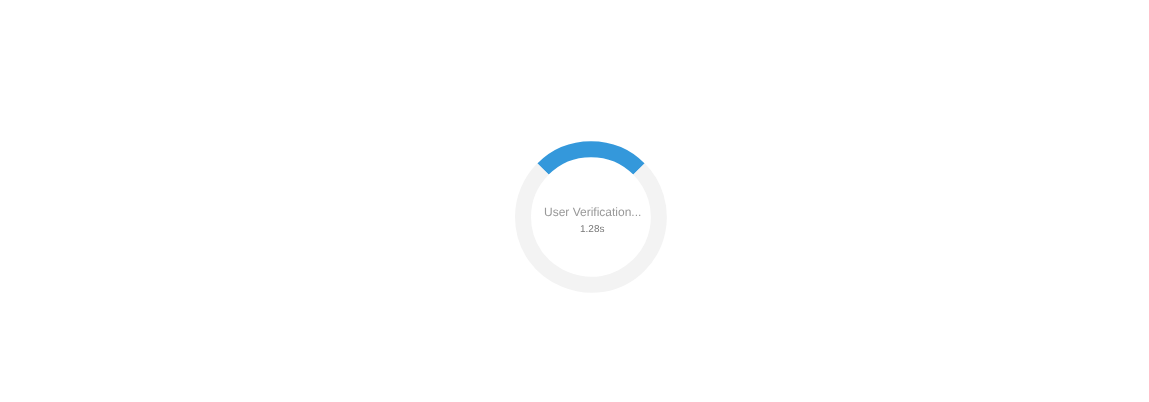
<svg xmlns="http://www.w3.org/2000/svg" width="1149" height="402">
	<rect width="100%" height="100%" fill="#FFFFFF" />
	<path d="M543 169C569 142.5 613 142.5 639 169" fill="none" stroke="#3498DB" stroke-width="16" />
	<path d="M639 169C655 185 662 208 657.5 230.5C655 243.5 648.5 255.5 639 265C596.5 307.5 523 277 523 217C523 199 530.5 181.5 543 169" fill="none" stroke="#F3F3F3" stroke-width="16" />
	<text x="544" y="216" font-family="Liberation Sans" font-size="12" fill="#999999">User Verification...</text>
	<text x="580" y="232" font-family="Liberation Sans" font-size="10" fill="#777777">1.28s</text>
</svg>
